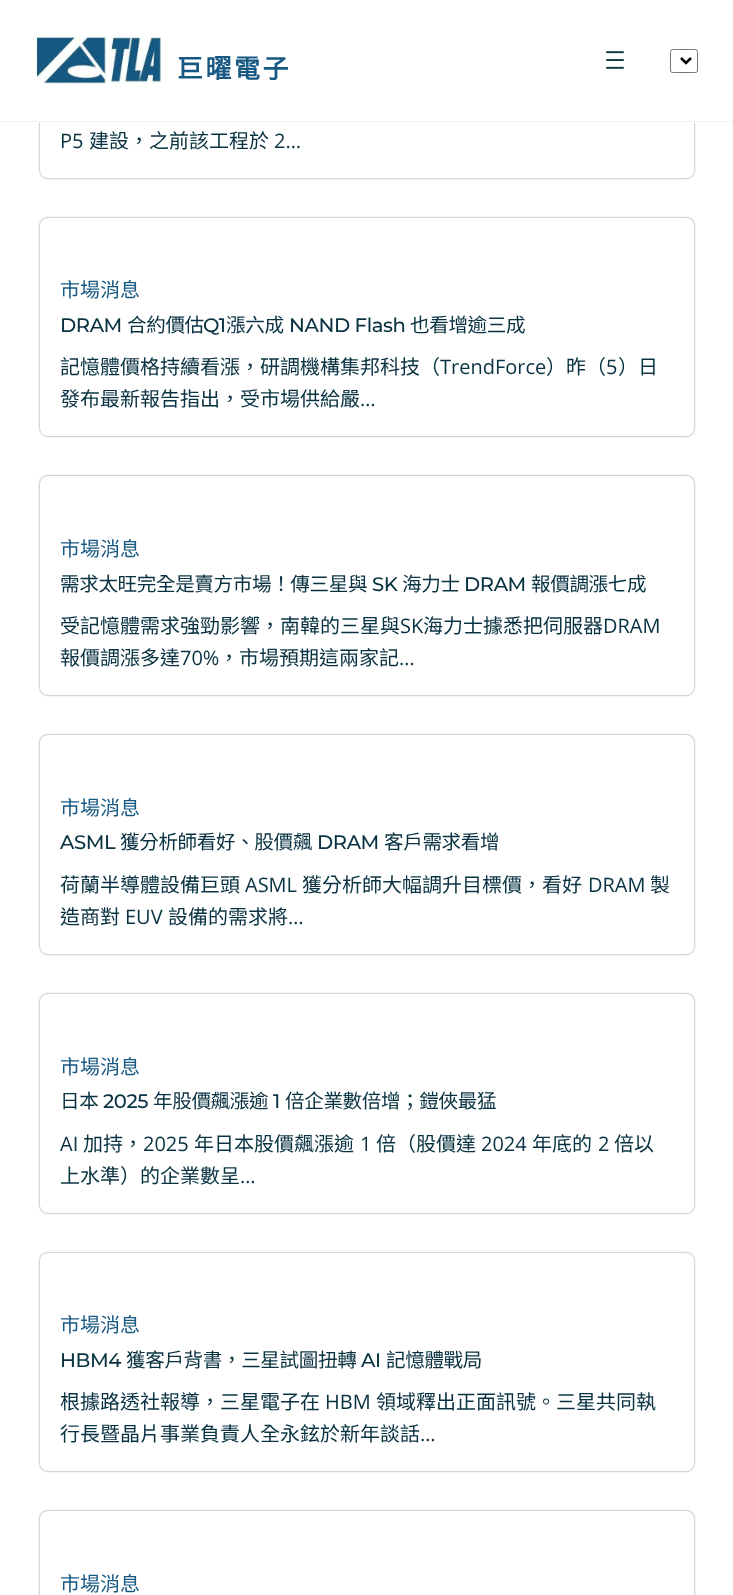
<svg xmlns="http://www.w3.org/2000/svg" width="733" height="1595">
	<defs>
		<clipPath id="clip1"><path d="M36 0H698V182H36ZM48-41H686C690.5-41 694-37.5 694-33V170C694 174.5 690.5 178 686 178H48C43.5 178 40 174.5 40 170V-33C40-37.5 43.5-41 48-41Z" clip-rule="evenodd" /></clipPath>
		<clipPath id="clip2"><path d="M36 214H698V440H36ZM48 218H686C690.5 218 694 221.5 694 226V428C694 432.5 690.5 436 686 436H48C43.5 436 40 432.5 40 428V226C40 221.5 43.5 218 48 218Z" clip-rule="evenodd" /></clipPath>
		<clipPath id="clip3"><path d="M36 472H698V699H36ZM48 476H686C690.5 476 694 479.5 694 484V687C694 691.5 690.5 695 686 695H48C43.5 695 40 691.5 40 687V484C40 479.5 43.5 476 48 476Z" clip-rule="evenodd" /></clipPath>
		<clipPath id="clip4"><path d="M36 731H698V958H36ZM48 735H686C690.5 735 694 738.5 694 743V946C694 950.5 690.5 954 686 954H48C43.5 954 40 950.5 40 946V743C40 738.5 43.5 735 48 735Z" clip-rule="evenodd" /></clipPath>
		<clipPath id="clip5"><path d="M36 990H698V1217H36ZM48 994H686C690.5 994 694 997.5 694 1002V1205C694 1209.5 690.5 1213 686 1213H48C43.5 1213 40 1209.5 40 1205V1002C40 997.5 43.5 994 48 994Z" clip-rule="evenodd" /></clipPath>
		<clipPath id="clip6"><path d="M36 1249H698V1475H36ZM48 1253H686C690.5 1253 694 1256.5 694 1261V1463C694 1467.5 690.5 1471 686 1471H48C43.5 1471 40 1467.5 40 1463V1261C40 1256.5 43.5 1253 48 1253Z" clip-rule="evenodd" /></clipPath>
		<clipPath id="clip7"><path d="M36 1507H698V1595H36ZM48 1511H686C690.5 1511 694 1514.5 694 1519V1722C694 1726.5 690.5 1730 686 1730H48C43.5 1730 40 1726.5 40 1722V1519C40 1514.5 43.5 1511 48 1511Z" clip-rule="evenodd" /></clipPath>
	</defs>
	<rect width="100%" height="100%" fill="#FFFFFF" />
	<g clip-path="url(#clip1)">
		<rect x="40" y="-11" width="654" height="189" rx="8" fill="#808080" filter="blur(1px)" />
	</g>
	<rect x="38" y="0" width="658" height="123" fill="#FFFFFF" />
	<rect x="0" y="121" width="733" height="1" fill="#F0F0F0" />
	<image x="36" y="36" width="125" height="48" href="assets/img1.png" />
	<text x="177" y="78" font-family="Noto Sans CJK TC" font-size="26" font-weight="700" letter-spacing="2.5" fill="#165881">巨曜電子</text>
	<image x="606" y="51" width="18" height="18" href="assets/img2.png" />
	<rect x="670.5" y="49.5" width="27" height="23" rx="2" fill="none" stroke="#767676" />
	<path d="M681 58L686 63L691 58" fill="none" stroke="#000000" stroke-width="2.5" />
	<text x="60" y="148" font-family="Open Sans" font-size="20" fill="#083141">P5</text>
	<text x="89" y="148" font-family="Noto Sans CJK TC" font-size="20" fill="#083141">建設，之前該工程於</text>
	<text x="274" y="148" font-family="Open Sans" font-size="20" fill="#083141">2…</text>
	<g clip-path="url(#clip2)">
		<rect x="40" y="218" width="654" height="218" rx="8" fill="#808080" filter="blur(1px)" />
	</g>
	<text x="60" y="297" font-family="Noto Sans CJK TC" font-size="20" fill="#165881">市場消息</text>
	<text x="60" y="332" font-family="Montserrat" font-size="19.6" font-weight="500" letter-spacing="-0.4" fill="#083141">DRAM</text>
	<text x="127" y="332" font-family="Noto Sans CJK TC" font-size="19.6" letter-spacing="-0.4" fill="#083141">合約價估</text>
	<text x="203" y="332" font-family="Montserrat" font-size="19.6" font-weight="500" letter-spacing="-0.4" fill="#083141">Q1</text>
	<text x="226" y="332" font-family="Noto Sans CJK TC" font-size="19.6" letter-spacing="-0.4" fill="#083141">漲六成</text>
	<text x="289" y="332" font-family="Montserrat" font-size="19.6" font-weight="500" letter-spacing="-0.4" fill="#083141">NAND Flash</text>
	<text x="410" y="332" font-family="Noto Sans CJK TC" font-size="19.6" letter-spacing="-0.4" fill="#083141">也看增逾三成</text>
	<text x="60" y="374" font-family="Noto Sans CJK TC" font-size="20" fill="#083141">記憶體價格持續看漲，研調機構集邦科技（</text>
	<text x="440" y="374" font-family="Open Sans" font-size="20" fill="#083141">TrendForce</text>
	<text x="546" y="374" font-family="Noto Sans CJK TC" font-size="20" fill="#083141">）昨（</text>
	<text x="606" y="374" font-family="Open Sans" font-size="20" fill="#083141">5</text>
	<g font-family="Noto Sans CJK TC" font-size="20" fill="#083141">
		<text x="618" y="374">）日</text>
		<text x="60" y="406">發布最新報告指出，受市場供給嚴</text>
	</g>
	<text x="360" y="406" font-family="Open Sans" font-size="20" fill="#083141">…</text>
	<g clip-path="url(#clip3)">
		<rect x="40" y="476" width="654" height="219" rx="8" fill="#808080" filter="blur(1px)" />
	</g>
	<text x="60" y="556" font-family="Noto Sans CJK TC" font-size="20" fill="#165881">市場消息</text>
	<text x="60" y="591" font-family="Noto Sans CJK TC" font-size="19.6" letter-spacing="-0.4" fill="#083141">需求太旺完全是賣方市場！傳三星與</text>
	<text x="372" y="591" font-family="Montserrat" font-size="19.6" font-weight="500" letter-spacing="-0.4" fill="#083141">SK</text>
	<text x="402" y="591" font-family="Noto Sans CJK TC" font-size="19.6" letter-spacing="-0.4" fill="#083141">海力士</text>
	<text x="464" y="591" font-family="Montserrat" font-size="19.6" font-weight="500" letter-spacing="-0.4" fill="#083141">DRAM</text>
	<text x="531" y="591" font-family="Noto Sans CJK TC" font-size="19.6" letter-spacing="-0.4" fill="#083141">報價調漲七成</text>
	<text x="60" y="633" font-family="Noto Sans CJK TC" font-size="20" fill="#083141">受記憶體需求強勁影響，南韓的三星與</text>
	<text x="400" y="633" font-family="Open Sans" font-size="20" fill="#083141">SK</text>
	<text x="423" y="633" font-family="Noto Sans CJK TC" font-size="20" fill="#083141">海力士據悉把伺服器</text>
	<text x="603" y="633" font-family="Open Sans" font-size="20" fill="#083141">DRAM</text>
	<text x="60" y="665" font-family="Noto Sans CJK TC" font-size="20" fill="#083141">報價調漲多達</text>
	<text x="180" y="665" font-family="Open Sans" font-size="20" fill="#083141">70%</text>
	<text x="219" y="665" font-family="Noto Sans CJK TC" font-size="20" fill="#083141">，市場預期這兩家記</text>
	<text x="399" y="665" font-family="Open Sans" font-size="20" fill="#083141">…</text>
	<g clip-path="url(#clip4)">
		<rect x="40" y="735" width="654" height="219" rx="8" fill="#808080" filter="blur(1px)" />
	</g>
	<text x="60" y="815" font-family="Noto Sans CJK TC" font-size="20" fill="#165881">市場消息</text>
	<text x="60" y="849" font-family="Montserrat" font-size="19.6" font-weight="500" letter-spacing="-0.4" fill="#083141">ASML</text>
	<text x="120" y="849" font-family="Noto Sans CJK TC" font-size="19.6" letter-spacing="-0.4" fill="#083141">獲分析師看好、股價飆</text>
	<text x="317" y="849" font-family="Montserrat" font-size="19.6" font-weight="500" letter-spacing="-0.4" fill="#083141">DRAM</text>
	<text x="384" y="849" font-family="Noto Sans CJK TC" font-size="19.6" letter-spacing="-0.4" fill="#083141">客戶需求看增</text>
	<text x="60" y="892" font-family="Noto Sans CJK TC" font-size="20" fill="#083141">荷蘭半導體設備巨頭</text>
	<text x="245" y="892" font-family="Open Sans" font-size="20" fill="#083141">ASML</text>
	<text x="302" y="892" font-family="Noto Sans CJK TC" font-size="20" fill="#083141">獲分析師大幅調升目標價，看好</text>
	<text x="588" y="892" font-family="Open Sans" font-size="20" fill="#083141">DRAM</text>
	<g font-family="Noto Sans CJK TC" font-size="20" fill="#083141">
		<text x="650" y="892">製</text>
		<text x="60" y="924">造商對</text>
	</g>
	<text x="125" y="924" font-family="Open Sans" font-size="20" fill="#083141">EUV</text>
	<text x="168" y="924" font-family="Noto Sans CJK TC" font-size="20" fill="#083141">設備的需求將</text>
	<text x="288" y="924" font-family="Open Sans" font-size="20" fill="#083141">…</text>
	<g clip-path="url(#clip5)">
		<rect x="40" y="994" width="654" height="219" rx="8" fill="#808080" filter="blur(1px)" />
	</g>
	<text x="60" y="1074" font-family="Noto Sans CJK TC" font-size="20" fill="#165881">市場消息</text>
	<text x="60" y="1108" font-family="Noto Sans CJK TC" font-size="19.6" letter-spacing="-0.4" fill="#083141">日本</text>
	<text x="103" y="1108" font-family="Montserrat" font-size="19.6" font-weight="500" letter-spacing="-0.4" fill="#083141">2025</text>
	<text x="153" y="1108" font-family="Noto Sans CJK TC" font-size="19.6" letter-spacing="-0.4" fill="#083141">年股價飆漲逾</text>
	<text x="273" y="1108" font-family="Montserrat" font-size="19.6" font-weight="500" letter-spacing="-0.4" fill="#083141">1</text>
	<text x="285" y="1108" font-family="Noto Sans CJK TC" font-size="19.6" letter-spacing="-0.4" fill="#083141">倍企業數倍增；鎧俠最猛</text>
	<text x="60" y="1151" font-family="Open Sans" font-size="20" fill="#083141">AI</text>
	<text x="83" y="1151" font-family="Noto Sans CJK TC" font-size="20" fill="#083141">加持，</text>
	<text x="143" y="1151" font-family="Open Sans" font-size="20" fill="#083141">2025</text>
	<text x="194" y="1151" font-family="Noto Sans CJK TC" font-size="20" fill="#083141">年日本股價飆漲逾</text>
	<text x="360" y="1151" font-family="Open Sans" font-size="20" fill="#083141">1</text>
	<text x="376" y="1151" font-family="Noto Sans CJK TC" font-size="20" fill="#083141">倍（股價達</text>
	<text x="481" y="1151" font-family="Open Sans" font-size="20" fill="#083141">2024</text>
	<text x="532" y="1151" font-family="Noto Sans CJK TC" font-size="20" fill="#083141">年底的</text>
	<text x="598" y="1151" font-family="Open Sans" font-size="20" fill="#083141">2</text>
	<g font-family="Noto Sans CJK TC" font-size="20" fill="#083141">
		<text x="614" y="1151">倍以</text>
		<text x="60" y="1183">上水準）的企業數呈</text>
	</g>
	<text x="240" y="1183" font-family="Open Sans" font-size="20" fill="#083141">…</text>
	<g clip-path="url(#clip6)">
		<rect x="40" y="1253" width="654" height="218" rx="8" fill="#808080" filter="blur(1px)" />
	</g>
	<text x="60" y="1332" font-family="Noto Sans CJK TC" font-size="20" fill="#165881">市場消息</text>
	<text x="60" y="1367" font-family="Montserrat" font-size="19.6" font-weight="500" letter-spacing="-0.4" fill="#083141">HBM4</text>
	<text x="126" y="1367" font-family="Noto Sans CJK TC" font-size="19.6" letter-spacing="-0.4" fill="#083141">獲客戶背書，三星試圖扭轉</text>
	<text x="361" y="1367" font-family="Montserrat" font-size="19.6" font-weight="500" letter-spacing="-0.4" fill="#083141">AI</text>
	<text x="386" y="1367" font-family="Noto Sans CJK TC" font-size="19.6" letter-spacing="-0.4" fill="#083141">記憶體戰局</text>
	<text x="60" y="1409" font-family="Noto Sans CJK TC" font-size="20" fill="#083141">根據路透社報導，三星電子在</text>
	<text x="325" y="1409" font-family="Open Sans" font-size="20" fill="#083141">HBM</text>
	<g font-family="Noto Sans CJK TC" font-size="20" fill="#083141">
		<text x="376" y="1409">領域釋出正面訊號。三星共同執</text>
		<text x="60" y="1441">行長暨晶片事業負責人全永鉉於新年談話</text>
	</g>
	<text x="420" y="1441" font-family="Open Sans" font-size="20" fill="#083141">…</text>
	<g clip-path="url(#clip7)">
		<rect x="40" y="1511" width="654" height="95" rx="8" fill="#808080" filter="blur(1px)" />
	</g>
	<text x="60" y="1591" font-family="Noto Sans CJK TC" font-size="20" fill="#165881">市場消息</text>
</svg>
